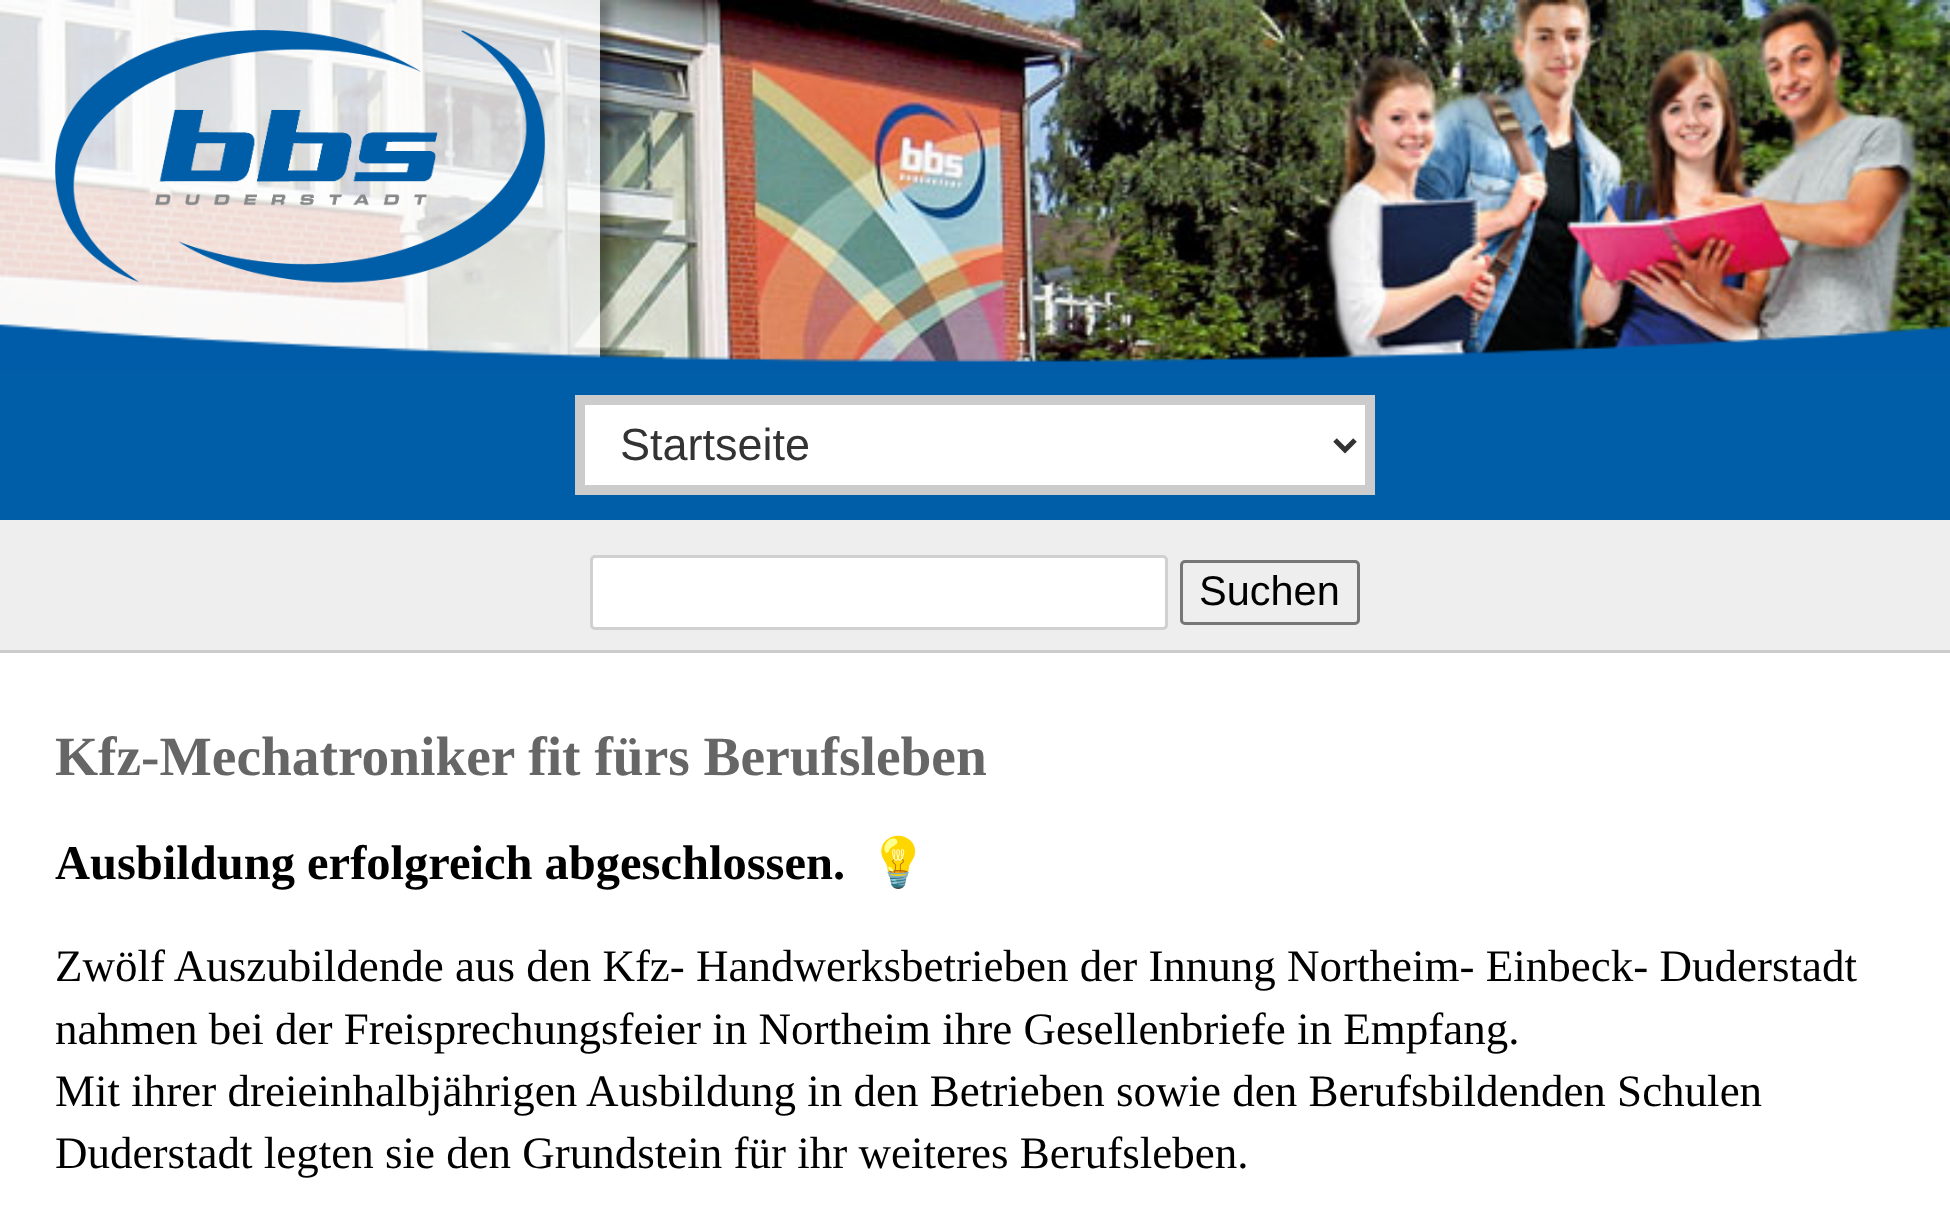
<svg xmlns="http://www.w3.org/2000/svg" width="1950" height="1216">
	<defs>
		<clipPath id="clip1"><rect x="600" y="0" width="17" height="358" /></clipPath>
	</defs>
	<rect width="100%" height="100%" fill="#FFFFFF" />
	<image x="0" y="0" width="1950" height="362" href="assets/img1.png" />
	<g clip-path="url(#clip1)">
		<rect x="10" y="0" width="600" height="370" fill="#000000" fill-opacity="0.3" filter="blur(5px)" />
	</g>
	<rect x="0" y="0" width="600" height="358" fill="#FFFFFF" fill-opacity="0.8" />
	<image x="55" y="30" width="490" height="253" href="assets/img2.png" />
	<image x="0" y="324" width="1950" height="46" href="assets/img3.png" />
	<rect x="0" y="370" width="1950" height="150" fill="#005EA8" />
	<rect x="580" y="400" width="790" height="90" fill="#FFFFFF" stroke="#CCCCCC" stroke-width="10" />
	<path d="M1335 440L1345 450L1355 440" fill="none" stroke="#333333" stroke-width="5" />
	<text x="620" y="460" font-family="Liberation Sans" font-size="45" fill="#333333">Startseite</text>
	<rect x="0" y="520" width="1950" height="130" fill="#EEEEEE" />
	<rect x="0" y="650" width="1950" height="3" fill="#CCCCCC" />
	<rect x="591.5" y="556.5" width="575" height="72" rx="3.5" fill="#FFFFFF" stroke="#D0D0D0" stroke-width="3" />
	<rect x="1181.5" y="561.5" width="177" height="62" rx="3.5" fill="none" stroke="#767676" stroke-width="3" />
	<text x="1199" y="605" font-family="Liberation Sans" font-size="41.5" fill="#000000">Suchen</text>
	<text x="55" y="775" font-family="Liberation Serif" font-size="55.4" font-weight="700" fill="#666666">Kfz-Mechatroniker fit fürs Berufsleben</text>
	<text x="55" y="879" font-family="Liberation Serif" font-size="48.5" font-weight="700" fill="#000000">Ausbildung erfolgreich abgeschlossen.</text>
	<text x="868" y="879" font-family="Noto Color Emoji" font-size="48.5" font-weight="700" fill="#000000">💡</text>
	<g font-family="Liberation Serif" font-size="45" fill="#000000">
		<text x="55" y="981">Zwölf Auszubildende aus den Kfz- Handwerksbetrieben der Innung Northeim- Einbeck- Duderstadt</text>
		<text x="55" y="1044">nahmen bei der Freisprechungsfeier in Northeim ihre Gesellenbriefe in Empfang.</text>
		<text x="55" y="1106">Mit ihrer dreieinhalbjährigen Ausbildung in den Betrieben sowie den Berufsbildenden Schulen</text>
		<text x="55" y="1168">Duderstadt legten sie den Grundstein für ihr weiteres Berufsleben.</text>
	</g>
</svg>
